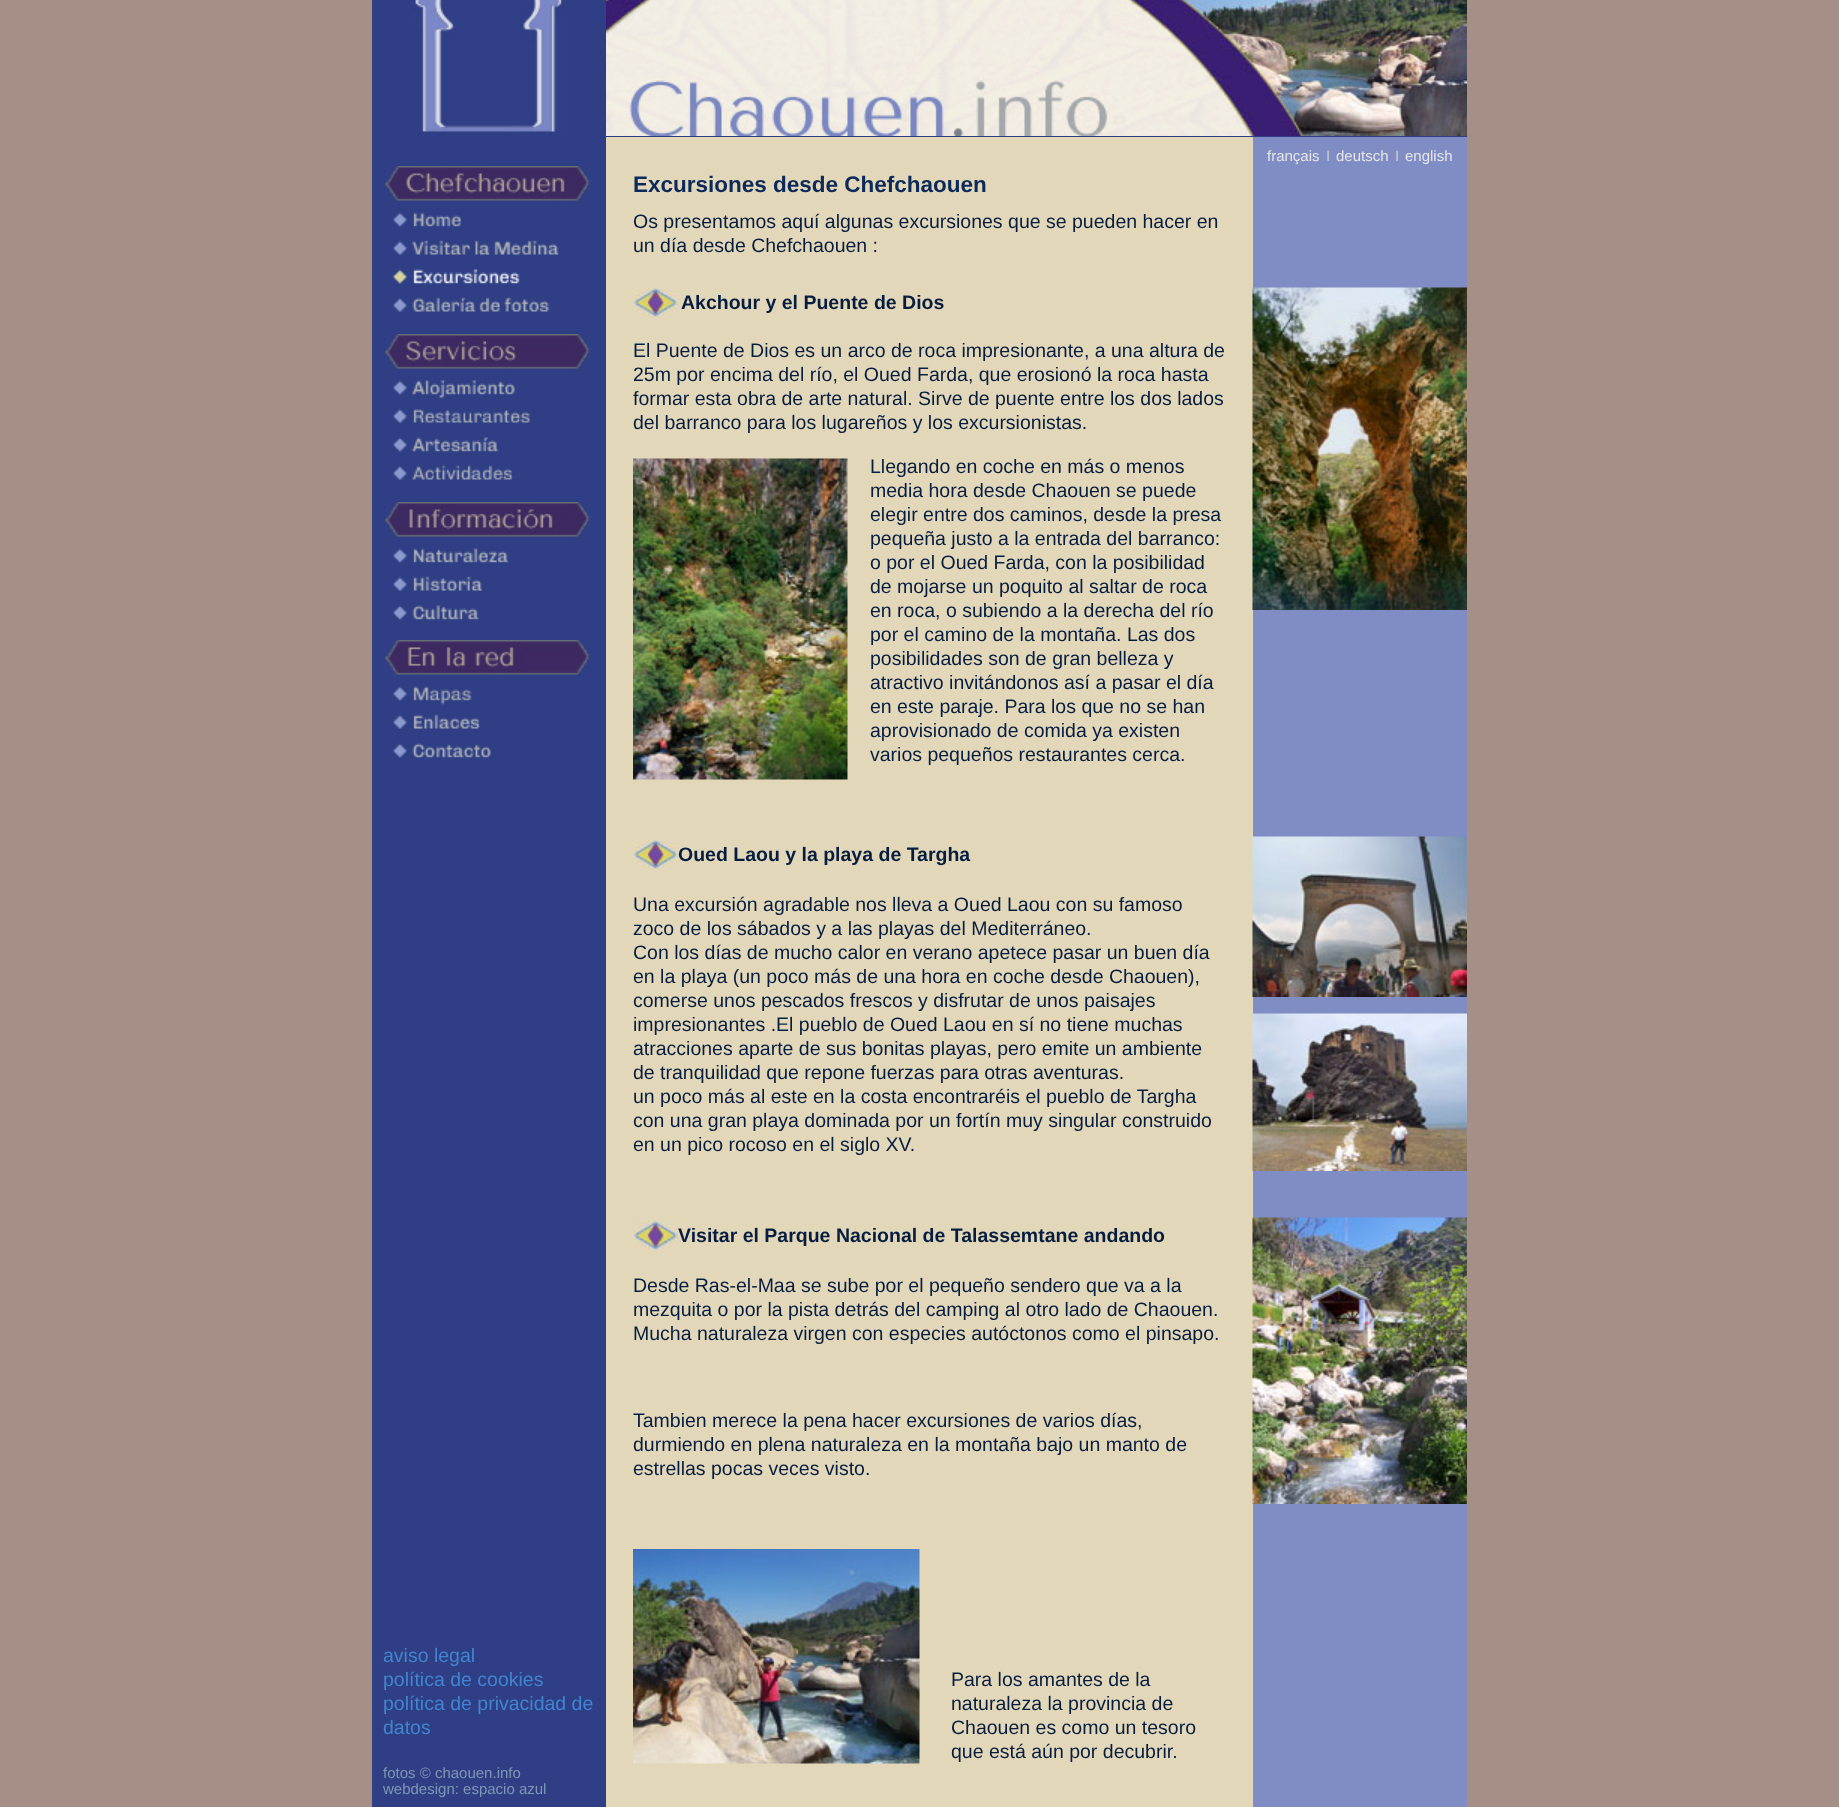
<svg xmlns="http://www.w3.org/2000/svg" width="1839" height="1807">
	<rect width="100%" height="100%" fill="#A68F86" />
	<rect x="372" y="0" width="1095" height="1807" fill="#303F85" />
	<image x="411" y="0" width="156" height="136" href="assets/img1.png" />
	<image x="606" y="0" width="861" height="136" href="assets/img2.png" />
	<rect x="1253" y="137" width="214" height="1670" fill="#808DC5" />
	<text x="1267" y="161" font-family="Liberation Sans" font-size="15" fill="#E6E6E6">français</text>
	<text x="1326" y="161" font-family="Liberation Sans" font-size="15" fill="#CCCCCC">I</text>
	<text x="1336" y="161" font-family="Liberation Sans" font-size="15" fill="#E6E6E6">deutsch</text>
	<text x="1395" y="161" font-family="Liberation Sans" font-size="15" fill="#CCCCCC">I</text>
	<text x="1405" y="161" font-family="Liberation Sans" font-size="15" fill="#E6E6E6">english</text>
	<rect x="606" y="137" width="647" height="1670" fill="#E3D7BA" />
	<image x="1252" y="287" width="215" height="323" href="assets/img3.png" />
	<image x="1252" y="836" width="215" height="161" href="assets/img4.png" />
	<image x="1252" y="1013" width="215" height="158" href="assets/img5.png" />
	<image x="1252" y="1217" width="215" height="287" href="assets/img6.png" />
	<image x="385" y="166" width="205" height="35" href="assets/img7.png" />
	<image x="393" y="208" width="68" height="19" href="assets/img8.png" />
	<image x="393" y="240" width="166" height="16" href="assets/img9.png" />
	<image x="392" y="269" width="128" height="15" href="assets/img10.png" />
	<image x="393" y="297" width="157" height="15" href="assets/img11.png" />
	<image x="385" y="334" width="205" height="35" href="assets/img12.png" />
	<image x="393" y="380" width="122" height="19" href="assets/img13.png" />
	<image x="393" y="409" width="137" height="18" href="assets/img14.png" />
	<image x="393" y="437" width="106" height="18" href="assets/img15.png" />
	<image x="393" y="465" width="120" height="15" href="assets/img16.png" />
	<image x="385" y="502" width="205" height="35" href="assets/img17.png" />
	<image x="393" y="548" width="116" height="15" href="assets/img18.png" />
	<image x="393" y="576" width="89" height="15" href="assets/img19.png" />
	<image x="393" y="605" width="86" height="15" href="assets/img20.png" />
	<image x="385" y="640" width="205" height="35" href="assets/img21.png" />
	<image x="393" y="686" width="79" height="19" href="assets/img22.png" />
	<image x="393" y="714" width="87" height="15" href="assets/img23.png" />
	<image x="393" y="743" width="98" height="15" href="assets/img24.png" />
	<g font-family="Liberation Sans" font-size="19.5" fill="#4085CF">
		<text x="383" y="1662">aviso legal</text>
		<text x="383" y="1686">política de cookies</text>
		<text x="383" y="1710">política de privacidad de</text>
		<text x="383" y="1734">datos</text>
	</g>
	<g font-family="Liberation Sans" font-size="15" fill="#7D98B3">
		<text x="383" y="1778">fotos © chaouen.info</text>
		<text x="383" y="1794">webdesign: espacio azul</text>
	</g>
	<text x="633" y="192" font-family="Liberation Sans" font-size="22.5" font-weight="700" fill="#0B2959">Excursiones desde Chefchaouen</text>
	<g font-family="Liberation Sans" font-size="19.5" fill="#071D3F">
		<text x="633" y="228">Os presentamos aquí algunas excursiones que se pueden hacer en</text>
		<text x="633" y="252">un día desde Chefchaouen :</text>
	</g>
	<image x="633" y="287" width="45" height="31" href="assets/img25.png" />
	<text x="681" y="309" font-family="Liberation Sans" font-size="19.5" font-weight="700" fill="#071D3F">Akchour y el Puente de Dios</text>
	<g font-family="Liberation Sans" font-size="19.5" fill="#071D3F">
		<text x="633" y="357">El Puente de Dios es un arco de roca impresionante, a una altura de</text>
		<text x="633" y="381">25m por encima del río, el Oued Farda, que erosionó la roca hasta</text>
		<text x="633" y="405">formar esta obra de arte natural. Sirve de puente entre los dos lados</text>
		<text x="633" y="429">del barranco para los lugareños y los excursionistas.</text>
	</g>
	<image x="633" y="458" width="215" height="322" href="assets/img26.png" />
	<g font-family="Liberation Sans" font-size="19.5" fill="#071D3F">
		<text x="870" y="473">Llegando en coche en más o menos</text>
		<text x="870" y="497">media hora desde Chaouen se puede</text>
		<text x="870" y="521">elegir entre dos caminos, desde la presa</text>
		<text x="870" y="545">pequeña justo a la entrada del barranco:</text>
		<text x="870" y="569">o por el Oued Farda, con la posibilidad</text>
		<text x="870" y="593">de mojarse un poquito al saltar de roca</text>
		<text x="870" y="617">en roca, o subiendo a la derecha del río</text>
		<text x="870" y="641">por el camino de la montaña. Las dos</text>
		<text x="870" y="665">posibilidades son de gran belleza y</text>
		<text x="870" y="689">atractivo invitándonos así a pasar el día</text>
		<text x="870" y="713">en este paraje. Para los que no se han</text>
		<text x="870" y="737">aprovisionado de comida ya existen</text>
		<text x="870" y="761">varios pequeños restaurantes cerca.</text>
	</g>
	<image x="633" y="839" width="45" height="31" href="assets/img25.png" />
	<text x="678" y="861" font-family="Liberation Sans" font-size="19.5" font-weight="700" fill="#071D3F">Oued Laou y la playa de Targha</text>
	<g font-family="Liberation Sans" font-size="19.5" fill="#071D3F">
		<text x="633" y="911">Una excursión agradable nos lleva a Oued Laou con su famoso</text>
		<text x="633" y="935">zoco de los sábados y a las playas del Mediterráneo.</text>
		<text x="633" y="959">Con los días de mucho calor en verano apetece pasar un buen día</text>
		<text x="633" y="983">en la playa (un poco más de una hora en coche desde Chaouen),</text>
		<text x="633" y="1007">comerse unos pescados frescos y disfrutar de unos paisajes</text>
		<text x="633" y="1031">impresionantes .El pueblo de Oued Laou en sí no tiene muchas</text>
		<text x="633" y="1055">atracciones aparte de sus bonitas playas, pero emite un ambiente</text>
		<text x="633" y="1079">de tranquilidad que repone fuerzas para otras aventuras.</text>
		<text x="633" y="1103">un poco más al este en la costa encontraréis el pueblo de Targha</text>
		<text x="633" y="1127">con una gran playa dominada por un fortín muy singular construido</text>
		<text x="633" y="1151">en un pico rocoso en el siglo XV.</text>
	</g>
	<image x="633" y="1220" width="45" height="31" href="assets/img25.png" />
	<text x="678" y="1242" font-family="Liberation Sans" font-size="19.5" font-weight="700" fill="#071D3F">Visitar el Parque Nacional de Talassemtane andando</text>
	<g font-family="Liberation Sans" font-size="19.5" fill="#071D3F">
		<text x="633" y="1292">Desde Ras-el-Maa se sube por el pequeño sendero que va a la</text>
		<text x="633" y="1316">mezquita o por la pista detrás del camping al otro lado de Chaouen.</text>
		<text x="633" y="1340">Mucha naturaleza virgen con especies autóctonos como el pinsapo.</text>
		<text x="633" y="1427">Tambien merece la pena hacer excursiones de varios días,</text>
		<text x="633" y="1451">durmiendo en plena naturaleza en la montaña bajo un manto de</text>
		<text x="633" y="1475">estrellas pocas veces visto.</text>
	</g>
	<image x="633" y="1549" width="287" height="215" href="assets/img27.png" />
	<g font-family="Liberation Sans" font-size="19.5" fill="#071D3F">
		<text x="951" y="1686">Para los amantes de la</text>
		<text x="951" y="1710">naturaleza la provincia de</text>
		<text x="951" y="1734">Chaouen es como un tesoro</text>
		<text x="951" y="1758">que está aún por decubrir.</text>
	</g>
</svg>
